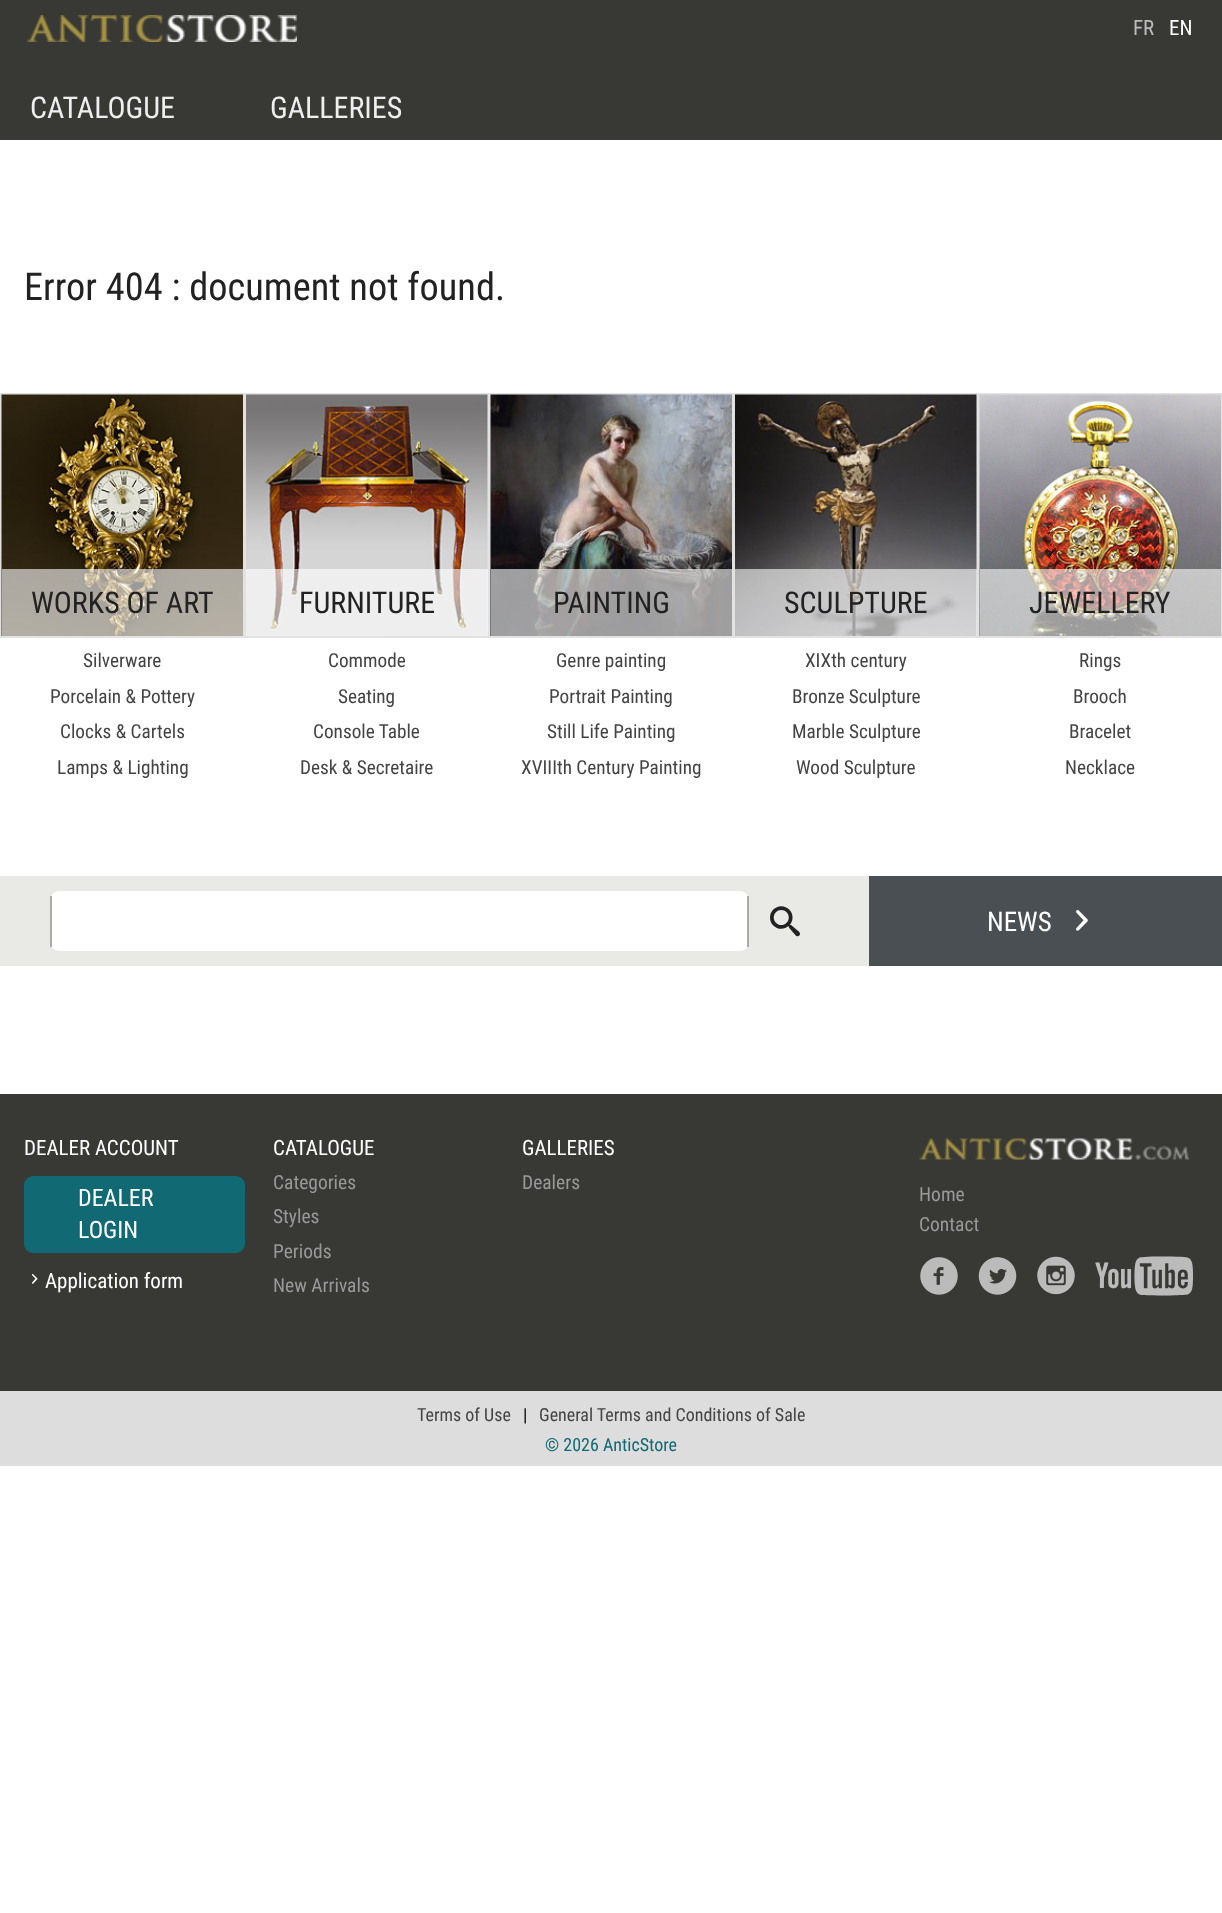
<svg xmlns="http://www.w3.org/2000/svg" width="1222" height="1913">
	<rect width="100%" height="100%" fill="#FFFFFF" />
	<rect x="0" y="0" width="1222" height="140" fill="#383934" />
	<image x="27" y="15" width="270" height="27" href="assets/img1.png" />
	<text x="1133" y="35" font-family="Roboto Condensed" font-size="21" fill="#BBBBBB">FR</text>
	<text x="1169" y="35" font-family="Roboto Condensed" font-size="21" fill="#FFFFFF">EN</text>
	<g font-family="Roboto Condensed" font-size="30" fill="#EEEEEE">
		<text x="30" y="118">CATALOGUE</text>
		<text x="270" y="118">GALLERIES</text>
	</g>
	<text x="24" y="300" font-family="Roboto Condensed" font-size="38.4" fill="#222222">Error 404 : document not found.</text>
	<rect x="1" y="394" width="243" height="243" fill="none" stroke="#E2E2E2" stroke-width="2" />
	<image x="1" y="394" width="242" height="242" href="assets/img2.png" />
	<rect x="2" y="569" width="241" height="67" fill="#FFFFFF" fill-opacity="0.6" />
	<text x="31" y="613" font-family="Roboto Condensed" font-size="30" fill="#222222">WORKS OF ART</text>
	<g font-family="Roboto Condensed" font-size="19.25" fill="#444444">
		<text x="83" y="667">Silverware</text>
		<text x="50" y="703">Porcelain &amp; Pottery</text>
		<text x="60" y="738">Clocks &amp; Cartels</text>
		<text x="57" y="774">Lamps &amp; Lighting</text>
	</g>
	<rect x="246" y="394" width="242" height="243" fill="none" stroke="#E2E2E2" stroke-width="2" />
	<image x="246" y="394" width="242" height="242" href="assets/img3.png" />
	<rect x="246" y="569" width="242" height="67" fill="#FFFFFF" fill-opacity="0.6" />
	<text x="299" y="613" font-family="Roboto Condensed" font-size="30" fill="#222222">FURNITURE</text>
	<g font-family="Roboto Condensed" font-size="19.25" fill="#444444">
		<text x="328" y="667">Commode</text>
		<text x="338" y="703">Seating</text>
		<text x="313" y="738">Console Table</text>
		<text x="300" y="774">Desk &amp; Secretaire</text>
	</g>
	<rect x="490" y="394" width="243" height="243" fill="none" stroke="#E2E2E2" stroke-width="2" />
	<image x="490" y="394" width="242" height="242" href="assets/img4.png" />
	<rect x="491" y="569" width="241" height="67" fill="#FFFFFF" fill-opacity="0.6" />
	<text x="553" y="613" font-family="Roboto Condensed" font-size="30" fill="#222222">PAINTING</text>
	<g font-family="Roboto Condensed" font-size="19.25" fill="#444444">
		<text x="556" y="667">Genre painting</text>
		<text x="549" y="703">Portrait Painting</text>
		<text x="547" y="738">Still Life Painting</text>
		<text x="521" y="774">XVIIIth Century Painting</text>
	</g>
	<rect x="735" y="394" width="242" height="243" fill="none" stroke="#E2E2E2" stroke-width="2" />
	<image x="735" y="394" width="242" height="242" href="assets/img5.png" />
	<rect x="735" y="569" width="242" height="67" fill="#FFFFFF" fill-opacity="0.6" />
	<text x="784" y="613" font-family="Roboto Condensed" font-size="30" fill="#222222">SCULPTURE</text>
	<g font-family="Roboto Condensed" font-size="19.25" fill="#444444">
		<text x="805" y="667">XIXth century</text>
		<text x="792" y="703">Bronze Sculpture</text>
		<text x="792" y="738">Marble Sculpture</text>
		<text x="796" y="774">Wood Sculpture</text>
	</g>
	<rect x="979" y="394" width="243" height="243" fill="none" stroke="#E2E2E2" stroke-width="2" />
	<image x="979" y="394" width="242" height="242" href="assets/img6.png" />
	<rect x="980" y="569" width="241" height="67" fill="#FFFFFF" fill-opacity="0.6" />
	<text x="1029" y="613" font-family="Roboto Condensed" font-size="30" fill="#222222">JEWELLERY</text>
	<g font-family="Roboto Condensed" font-size="19.25" fill="#444444">
		<text x="1079" y="667">Rings</text>
		<text x="1073" y="703">Brooch</text>
		<text x="1069" y="738">Bracelet</text>
		<text x="1065" y="774">Necklace</text>
	</g>
	<rect x="0" y="876" width="869" height="90" fill="#E9E9E6" />
	<rect x="50" y="891" width="699" height="60" rx="9" fill="#FFFFFF" />
	<rect x="747" y="896" width="2" height="51" fill="#AAAAAA" />
	<rect x="50" y="896" width="2" height="51" fill="#AAAAAA" />
	<text x="770" y="934" font-family="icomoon" font-size="30" fill="#222222">U</text>
	<rect x="869" y="876" width="353" height="90" fill="#4A4F54" />
	<text x="987" y="931" font-family="Roboto Condensed" font-size="27" fill="#FFFFFF">NEWS</text>
	<text x="1059" y="940" font-family="icomoon" font-size="45" fill="#FFFFFF">&gt;</text>
	<rect x="0" y="1094" width="1222" height="297" fill="#383934" />
	<text x="24" y="1155" font-family="Roboto Condensed" font-size="21" fill="#FFFFFF">DEALER ACCOUNT</text>
	<rect x="24" y="1176" width="221" height="77" rx="9" fill="#116973" />
	<g font-family="Roboto Condensed" font-size="24" fill="#FFFFFF">
		<text x="78" y="1206">DEALER</text>
		<text x="78" y="1238">LOGIN</text>
	</g>
	<text x="24" y="1288" font-family="icomoon" font-size="21" fill="#FFFFFF">&gt;</text>
	<g font-family="Roboto Condensed" font-size="21" fill="#FFFFFF">
		<text x="45" y="1288">Application form</text>
		<text x="273" y="1155">CATALOGUE</text>
	</g>
	<g font-family="Roboto Condensed" font-size="19.5" fill="#999999">
		<text x="273" y="1189">Categories</text>
		<text x="273" y="1223">Styles</text>
		<text x="273" y="1258">Periods</text>
		<text x="273" y="1292">New Arrivals</text>
	</g>
	<text x="522" y="1155" font-family="Roboto Condensed" font-size="21" fill="#FFFFFF">GALLERIES</text>
	<text x="522" y="1189" font-family="Roboto Condensed" font-size="19.5" fill="#999999">Dealers</text>
	<image x="919" y="1138" width="271" height="22" href="assets/img7.png" />
	<g font-family="Roboto Condensed" font-size="19.5" fill="#999999">
		<text x="919" y="1201">Home</text>
		<text x="919" y="1231">Contact</text>
	</g>
	<image x="920" y="1257" width="38" height="38" href="assets/img8.png" />
	<image x="978" y="1257" width="39" height="38" href="assets/img9.png" />
	<image x="1037" y="1256" width="38" height="39" href="assets/img10.png" />
	<text x="1095" y="1293" font-family="icomoon" font-size="39" fill="#BBBBBB">4</text>
	<rect x="0" y="1391" width="1222" height="75" fill="#DDDDDD" />
	<text x="417" y="1421" font-family="Roboto Condensed" font-size="18" fill="#444444">Terms of Use</text>
	<text x="523" y="1421" font-family="Roboto Condensed" font-size="18" fill="#000000">|</text>
	<text x="539" y="1421" font-family="Roboto Condensed" font-size="18" fill="#444444">General Terms and Conditions of Sale</text>
	<text x="545" y="1451" font-family="Roboto Condensed" font-size="18" fill="#116973">© 2026 AnticStore</text>
</svg>
